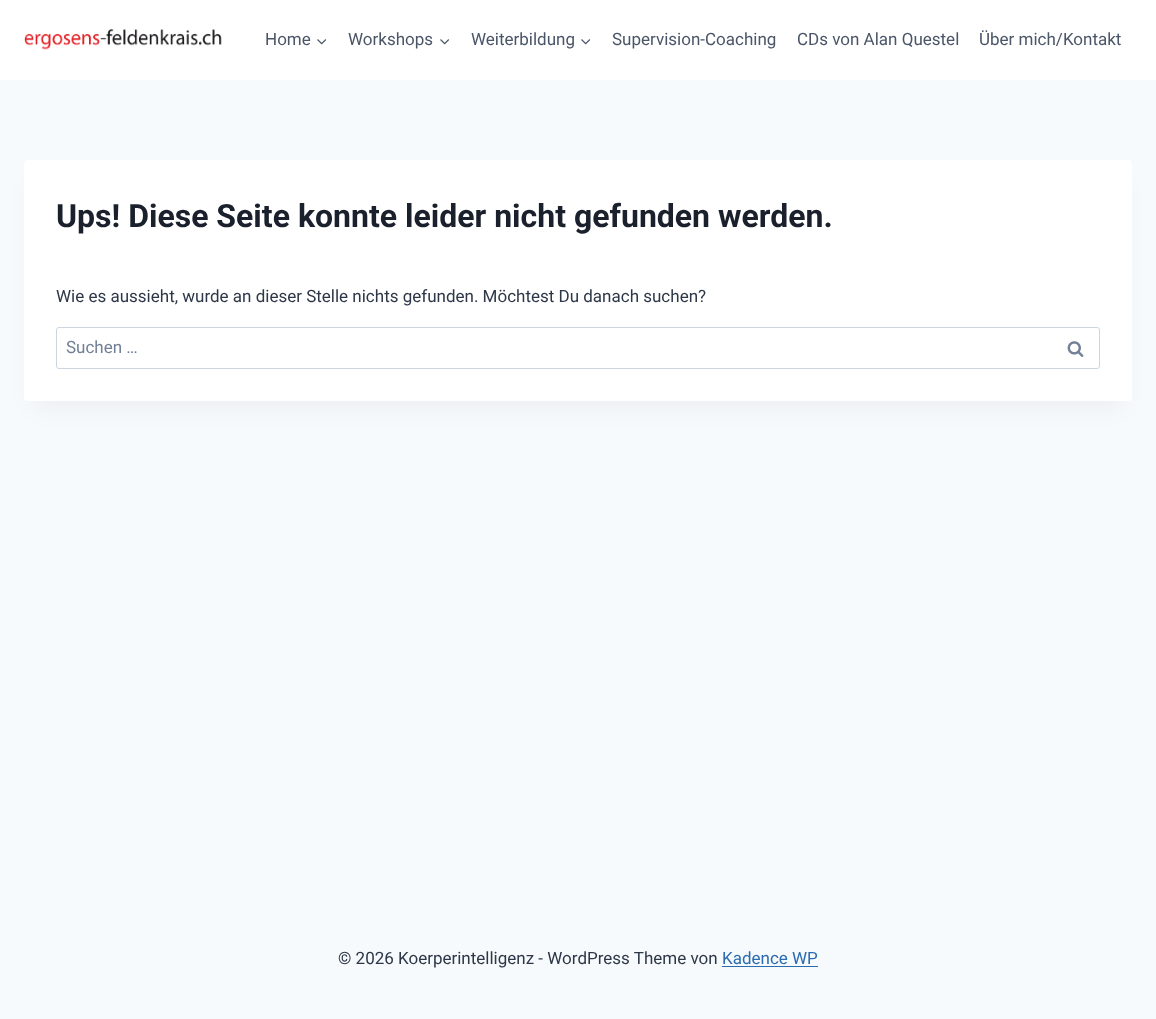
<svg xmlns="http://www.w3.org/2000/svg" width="1156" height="1019">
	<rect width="100%" height="100%" fill="#F7FAFC" />
	<rect x="0" y="0" width="1156" height="80" fill="#FFFFFF" />
	<image x="24" y="29" width="198" height="21" href="assets/img1.png" />
	<text x="265" y="45" font-family="Roboto" font-size="17" fill="#4A5568">Home</text>
	<image x="317" y="39" width="10" height="6" href="assets/img2.png" />
	<text x="348" y="45" font-family="Roboto" font-size="17" fill="#4A5568">Workshops</text>
	<image x="440" y="39" width="10" height="6" href="assets/img2.png" />
	<text x="471" y="45" font-family="Roboto" font-size="17" fill="#4A5568">Weiterbildung</text>
	<image x="581" y="39" width="10" height="6" href="assets/img2.png" />
	<g font-family="Roboto" font-size="17" fill="#4A5568">
		<text x="612" y="45">Supervision-Coaching</text>
		<text x="797" y="45">CDs von Alan Questel</text>
		<text x="979" y="45">Über mich/Kontakt</text>
	</g>
	<rect x="34" y="185" width="1088" height="221" fill="#000000" fill-opacity="0.05" filter="blur(12.5px)" />
	<rect x="24" y="160" width="1108" height="241" rx="4" fill="#FFFFFF" />
	<text x="56" y="227" font-family="Roboto" font-size="32" font-weight="700" fill="#1A202C">Ups! Diese Seite konnte leider nicht gefunden werden.</text>
	<text x="56" y="302" font-family="Roboto" font-size="17" fill="#2D3748">Wie es aussieht, wurde an dieser Stelle nichts gefunden. Möchtest Du danach suchen?</text>
	<rect x="56.5" y="327.5" width="1043" height="41" rx="2.5" fill="none" stroke="#CBD5E0" />
	<text x="66" y="353" font-family="Roboto" font-size="17" fill="#718096">Suchen …</text>
	<image x="1067" y="341" width="17" height="16" href="assets/img3.png" />
	<text x="338" y="964" font-family="Roboto" font-size="17" fill="#2D3748">© 2026 Koerperintelligenz - WordPress Theme von</text>
	<text x="722" y="964" font-family="Roboto" font-size="17" fill="#2B6CB0">Kadence WP</text>
	<rect x="722" y="966" width="96" height="1" fill="#2B6CB0" />
</svg>
